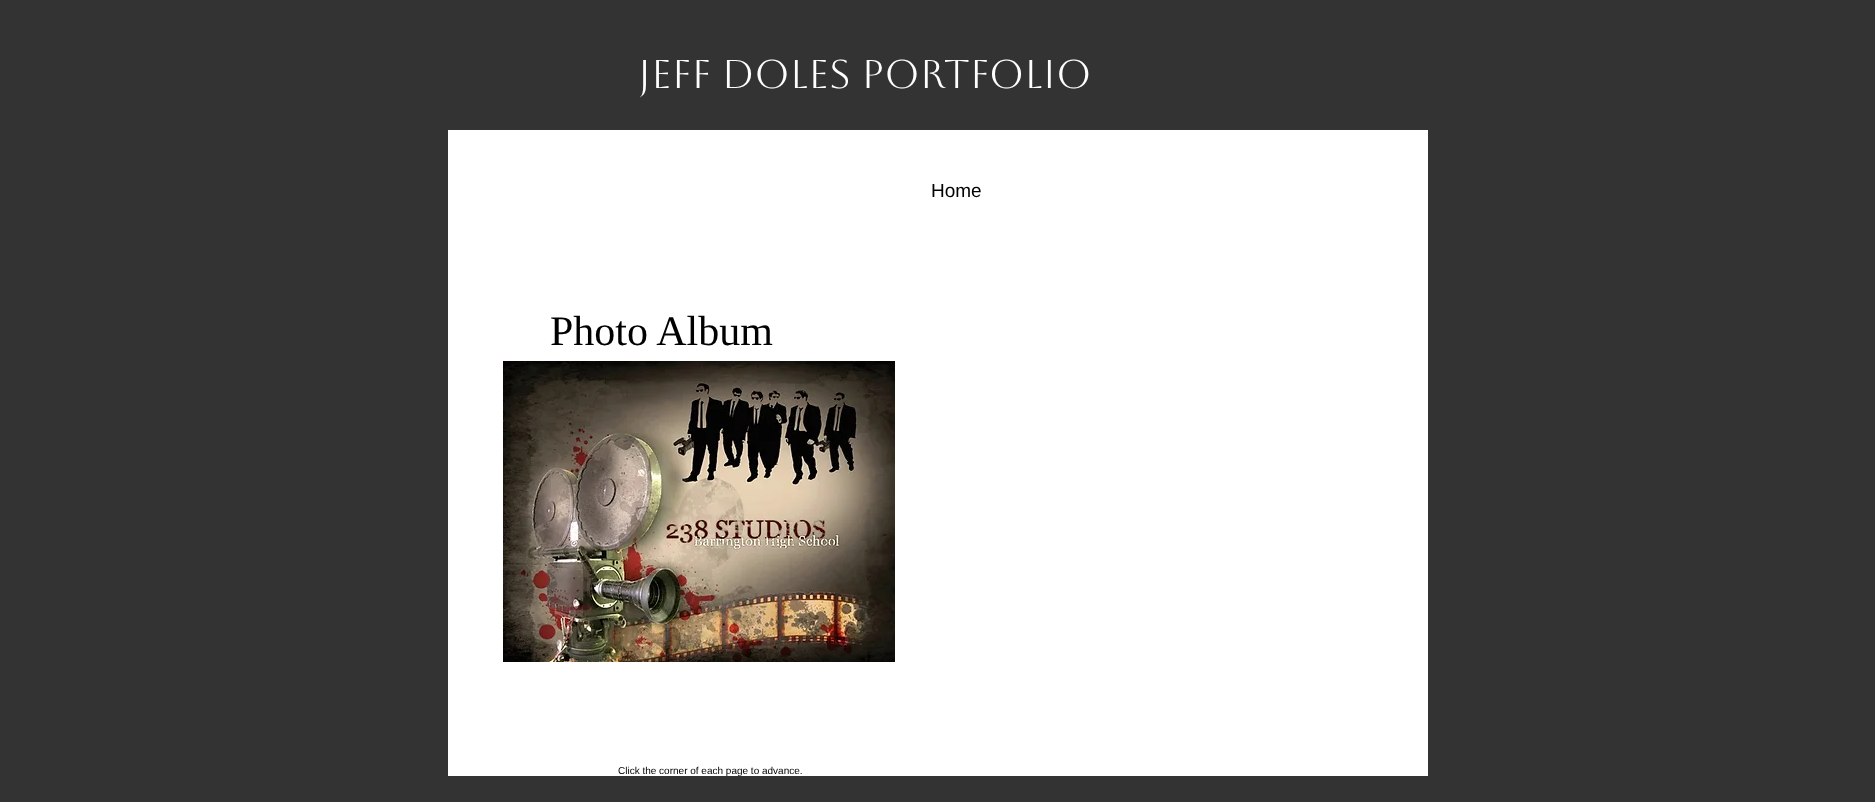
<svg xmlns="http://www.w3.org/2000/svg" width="1875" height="802">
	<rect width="100%" height="100%" fill="#333333" />
	<text x="638" y="88" font-family="Aboreto" font-size="40" fill="#FFFFFF">Jeff Doles Portfolio</text>
	<rect x="448" y="130" width="980" height="646" fill="#FFFFFF" />
	<text x="931" y="197" font-family="Liberation Sans" font-size="19" fill="#000000">Home</text>
	<text x="550" y="345" font-family="Liberation Serif" font-size="42" fill="#000000">Photo Album</text>
	<image x="503" y="361" width="392" height="301" href="assets/img1.png" />
	<text x="618" y="774" font-family="Liberation Sans" font-size="10" fill="#000000">Click the corner of each page to advance.</text>
</svg>
